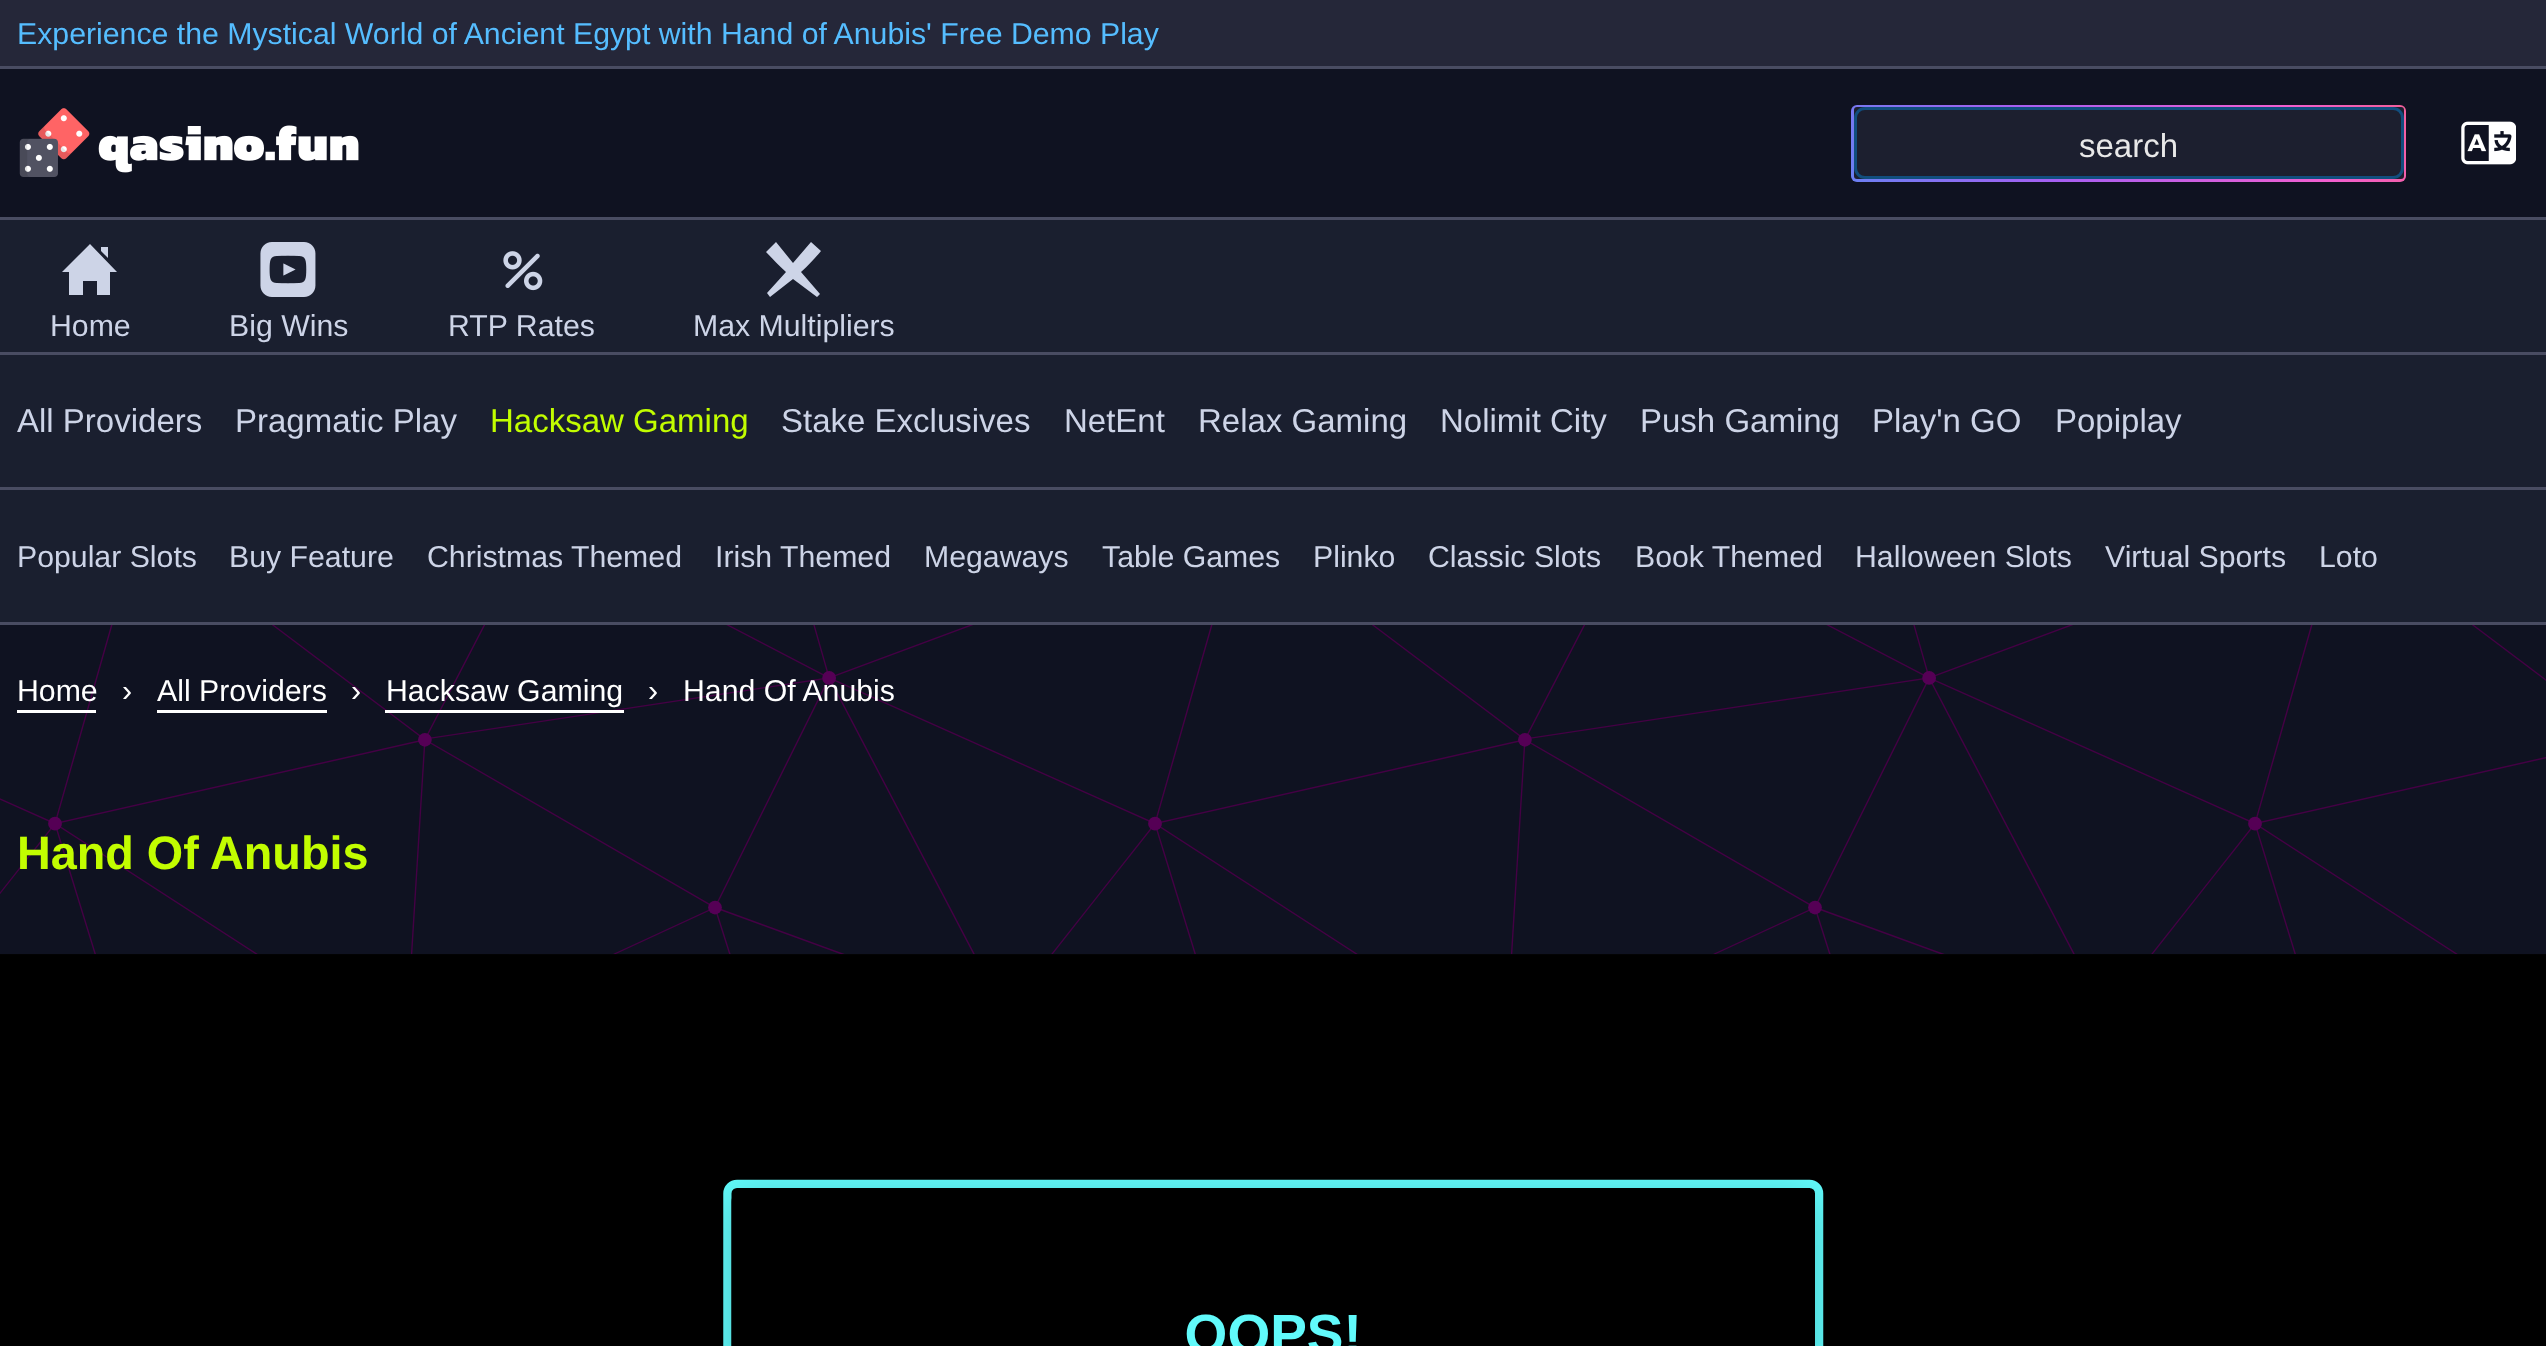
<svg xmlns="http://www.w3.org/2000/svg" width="2546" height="1346">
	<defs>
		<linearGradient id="g1" gradientUnits="userSpaceOnUse" x1="2009" y1="533" x2="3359" y2="-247"><stop offset="0" stop-color="#5F86F2" /><stop offset="0.14" stop-color="#A65FF2" /><stop offset="0.29" stop-color="#F25FD0" /><stop offset="0.43" stop-color="#F25F61" /><stop offset="0.57" stop-color="#F2CB5F" /><stop offset="0.71" stop-color="#ABF25F" /><stop offset="0.86" stop-color="#5FF281" /><stop offset="1" stop-color="#5FF2F0" /></linearGradient>
	</defs>
	<rect width="100%" height="100%" fill="#0F1221" />
	<image x="0" y="625" width="2546" height="330" href="assets/img1.png" />
	<rect x="0" y="0" width="2546" height="66" fill="#252739" />
	<rect x="0" y="66" width="2546" height="3" fill="#494C62" />
	<text x="17" y="44" font-family="Liberation Sans" font-size="30.25" fill="#55BDFF">Experience the Mystical World of Ancient Egypt with Hand of Anubis' Free Demo Play</text>
	<rect x="0" y="217" width="2546" height="3" fill="#494C62" />
	<image x="19" y="108" width="340" height="69" href="assets/img2.png" />
	<rect x="1851" y="105" width="555" height="77" rx="6" fill="url(#g1)" />
	<rect x="1854" y="107" width="550" height="72" rx="3" fill="#1C1F2F" />
	<rect x="1855.5" y="108.5" width="547" height="69" rx="9.5" fill="none" stroke="#114E7E" stroke-width="3" />
	<text x="2079" y="157" font-family="Liberation Sans" font-size="33" fill="#E8E8E8">search</text>
	<image x="2461" y="121" width="55" height="44" href="assets/img3.png" />
	<rect x="0" y="220" width="2546" height="132" fill="#1A1F2F" />
	<rect x="0" y="352" width="2546" height="3" fill="#494C62" />
	<path d="M110 272V295H97V281H83V295H69V272H62L90 244L117 272ZM108 258V247H101V251Z" fill="#CDD4E7" />
	<text x="50" y="336" font-family="Liberation Sans" font-size="30.25" fill="#CDD4E7">Home</text>
	<image x="260" y="242" width="56" height="55" href="assets/img4.png" />
	<text x="229" y="336" font-family="Liberation Sans" font-size="30.25" fill="#CDD4E7">Big Wins</text>
	<image x="503" y="251" width="40" height="40" href="assets/img5.png" />
	<text x="448" y="336" font-family="Liberation Sans" font-size="30.25" fill="#CDD4E7">RTP Rates</text>
	<path d="M821 251L811 242L793 263L776 242L766 252C772 258 778 265 786 272L767 293L770 297L793 279L817 297L820 294L801 272C809 265 816 257 821 251Z" fill="#CDD4E7" />
	<text x="693" y="336" font-family="Liberation Sans" font-size="30.25" fill="#CDD4E7">Max Multipliers</text>
	<rect x="0" y="355" width="2546" height="132" fill="#1A1F2F" />
	<rect x="0" y="487" width="2546" height="3" fill="#494C62" />
	<g font-family="Liberation Sans" font-size="33" fill="#CDD4E7">
		<text x="17" y="432">All Providers</text>
		<text x="235" y="432">Pragmatic Play</text>
	</g>
	<text x="490" y="432" font-family="Liberation Sans" font-size="33" fill="#C2FD00">Hacksaw Gaming</text>
	<g font-family="Liberation Sans" font-size="33" fill="#CDD4E7">
		<text x="781" y="432">Stake Exclusives</text>
		<text x="1064" y="432">NetEnt</text>
		<text x="1198" y="432">Relax Gaming</text>
		<text x="1440" y="432">Nolimit City</text>
		<text x="1640" y="432">Push Gaming</text>
		<text x="1872" y="432">Play'n GO</text>
		<text x="2055" y="432">Popiplay</text>
	</g>
	<rect x="0" y="490" width="2546" height="132" fill="#1A1F2F" />
	<rect x="0" y="622" width="2546" height="3" fill="#494C62" />
	<g font-family="Liberation Sans" font-size="30.25" fill="#CDD4E7">
		<text x="17" y="567">Popular Slots</text>
		<text x="229" y="567">Buy Feature</text>
		<text x="427" y="567">Christmas Themed</text>
		<text x="715" y="567">Irish Themed</text>
		<text x="924" y="567">Megaways</text>
		<text x="1102" y="567">Table Games</text>
		<text x="1313" y="567">Plinko</text>
		<text x="1428" y="567">Classic Slots</text>
		<text x="1635" y="567">Book Themed</text>
		<text x="1855" y="567">Halloween Slots</text>
		<text x="2105" y="567">Virtual Sports</text>
		<text x="2319" y="567">Loto</text>
	</g>
	<text x="17" y="701" font-family="Liberation Sans" font-size="30.25" fill="#FFFFFF">Home</text>
	<rect x="17" y="710" width="79" height="3" fill="#FFFFFF" />
	<g font-family="Liberation Sans" font-size="30.25" fill="#FFFFFF">
		<text x="122" y="701">›</text>
		<text x="157" y="701">All Providers</text>
	</g>
	<rect x="157" y="710" width="170" height="3" fill="#FFFFFF" />
	<g font-family="Liberation Sans" font-size="30.25" fill="#FFFFFF">
		<text x="351" y="701">›</text>
		<text x="386" y="701">Hacksaw Gaming</text>
	</g>
	<rect x="385" y="710" width="239" height="3" fill="#FFFFFF" />
	<g font-family="Liberation Sans" font-size="30.25" fill="#FFFFFF">
		<text x="648" y="701">›</text>
		<text x="683" y="701">Hand Of Anubis</text>
	</g>
	<text x="17" y="869" font-family="Liberation Sans" font-size="46.75" font-weight="700" fill="#C2FD00">Hand Of Anubis</text>
	<image x="0" y="954" width="2546" height="392" href="assets/img6.png" />
</svg>
